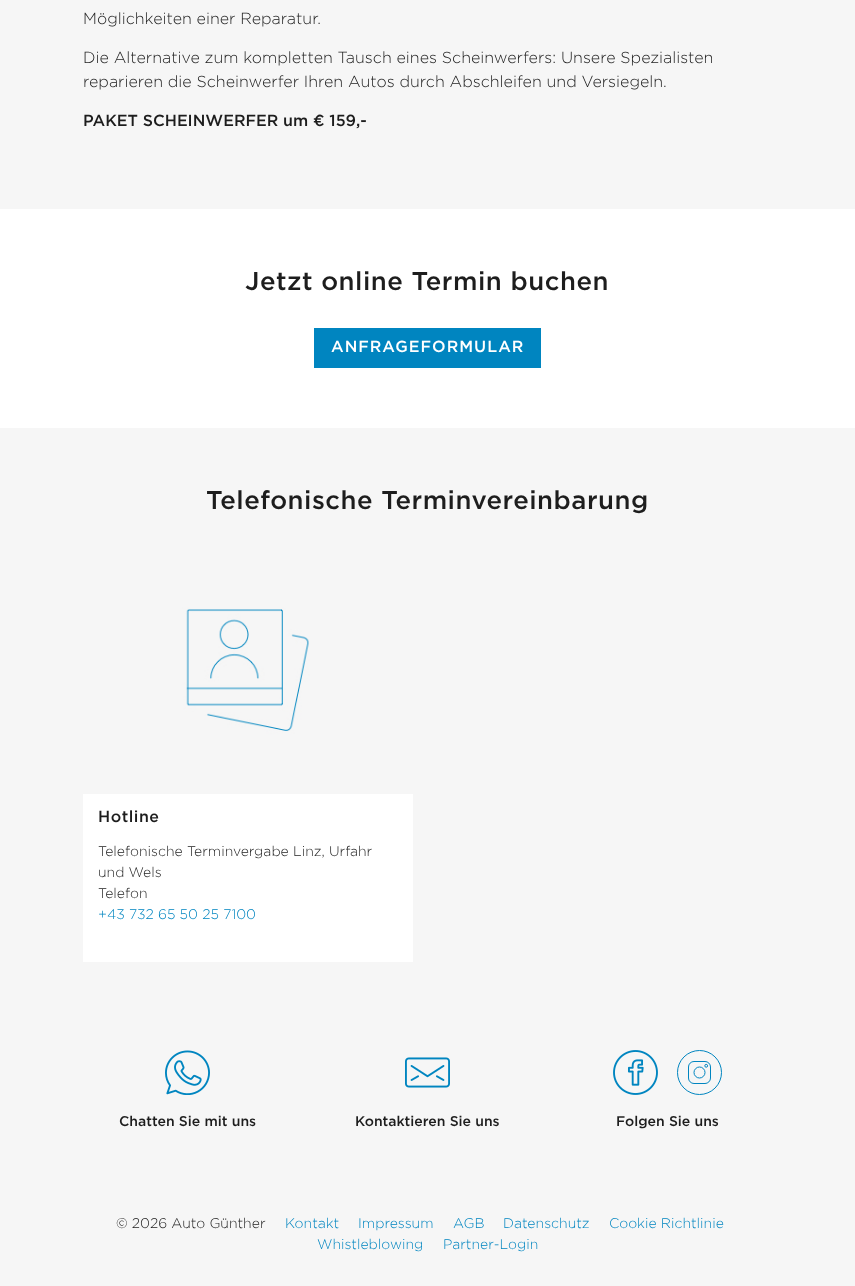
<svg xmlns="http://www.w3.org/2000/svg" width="855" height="1286">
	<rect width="100%" height="100%" fill="#FFFFFF" />
	<rect x="0" y="0" width="855" height="209" fill="#F6F6F6" />
	<g font-family="Gotham" font-size="16" font-weight="300" fill="#1D1D1D">
		<text x="83" y="24">Möglichkeiten einer Reparatur.</text>
		<text x="83" y="63">Die Alternative zum kompletten Tausch eines Scheinwerfers: Unsere Spezialisten</text>
		<text x="83" y="87">reparieren die Scheinwerfer Ihren Autos durch Abschleifen und Versiegeln.</text>
	</g>
	<text x="83" y="126" font-family="Gotham" font-size="16" font-weight="500" fill="#1D1D1D">PAKET SCHEINWERFER um € 159,-</text>
	<text x="245" y="290" font-family="Gotham" font-size="25.75" font-weight="500" letter-spacing="0.5" fill="#1D1D1D">Jetzt online Termin buchen</text>
	<rect x="314" y="328" width="227" height="40" fill="#0085C0" />
	<text x="331" y="352" font-family="Gotham" font-size="16" font-weight="500" letter-spacing="1" fill="#FFFFFF">ANFRAGEFORMULAR</text>
	<rect x="0" y="428" width="855" height="858" fill="#F6F6F6" />
	<text x="206" y="509" font-family="Gotham" font-size="25.75" font-weight="500" letter-spacing="0.5" fill="#1D1D1D">Telefonische Terminvereinbarung</text>
	<rect x="83" y="794" width="330" height="168" fill="#FFFFFF" />
	<image x="83" y="546" width="330" height="248" href="assets/img1.png" />
	<text x="98" y="822" font-family="Gotham" font-size="16" font-weight="500" letter-spacing="0.5" fill="#1D1D1D">Hotline</text>
	<g font-family="Gotham" font-size="14" font-weight="300" fill="#1D1D1D">
		<text x="98" y="856">Telefonische Terminvergabe Linz, Urfahr</text>
		<text x="98" y="877">und Wels</text>
		<text x="98" y="898">Telefon</text>
	</g>
	<text x="98" y="919" font-family="Gotham" font-size="14" font-weight="300" fill="#0085C0">+43 732 65 50 25 7100</text>
	<image x="165" y="1050" width="45" height="45" href="assets/img2.png" />
	<text x="119" y="1126" font-family="Gotham" font-size="14" font-weight="500" fill="#1D1D1D">Chatten Sie mit uns</text>
	<image x="405" y="1057" width="45" height="31" href="assets/img3.png" />
	<text x="355" y="1126" font-family="Gotham" font-size="14" font-weight="500" fill="#1D1D1D">Kontaktieren Sie uns</text>
	<image x="613" y="1050" width="45" height="45" href="assets/img4.png" />
	<circle cx="699.5" cy="1072.5" r="22" fill="none" stroke="#0085C0" />
	<rect x="688.5" y="1061.5" width="22" height="22" rx="5.5" fill="none" stroke="#0085C0" />
	<circle cx="699.5" cy="1072.5" r="5.5" fill="none" stroke="#0085C0" />
	<circle cx="706.2" cy="1065.8" r="1.4" fill="none" stroke="#0085C0" />
	<text x="616" y="1126" font-family="Gotham" font-size="14" font-weight="500" fill="#1D1D1D">Folgen Sie uns</text>
	<text x="116" y="1228" font-family="Gotham" font-size="14" font-weight="300" fill="#1D1D1D">© 2026 Auto Günther</text>
	<g font-family="Gotham" font-size="14" font-weight="300" fill="#0085C0">
		<text x="285" y="1228">Kontakt</text>
		<text x="358" y="1228">Impressum</text>
		<text x="453" y="1228">AGB</text>
		<text x="503" y="1228">Datenschutz</text>
		<text x="609" y="1228">Cookie Richtlinie</text>
		<text x="317" y="1249">Whistleblowing</text>
		<text x="443" y="1249">Partner-Login</text>
	</g>
</svg>
